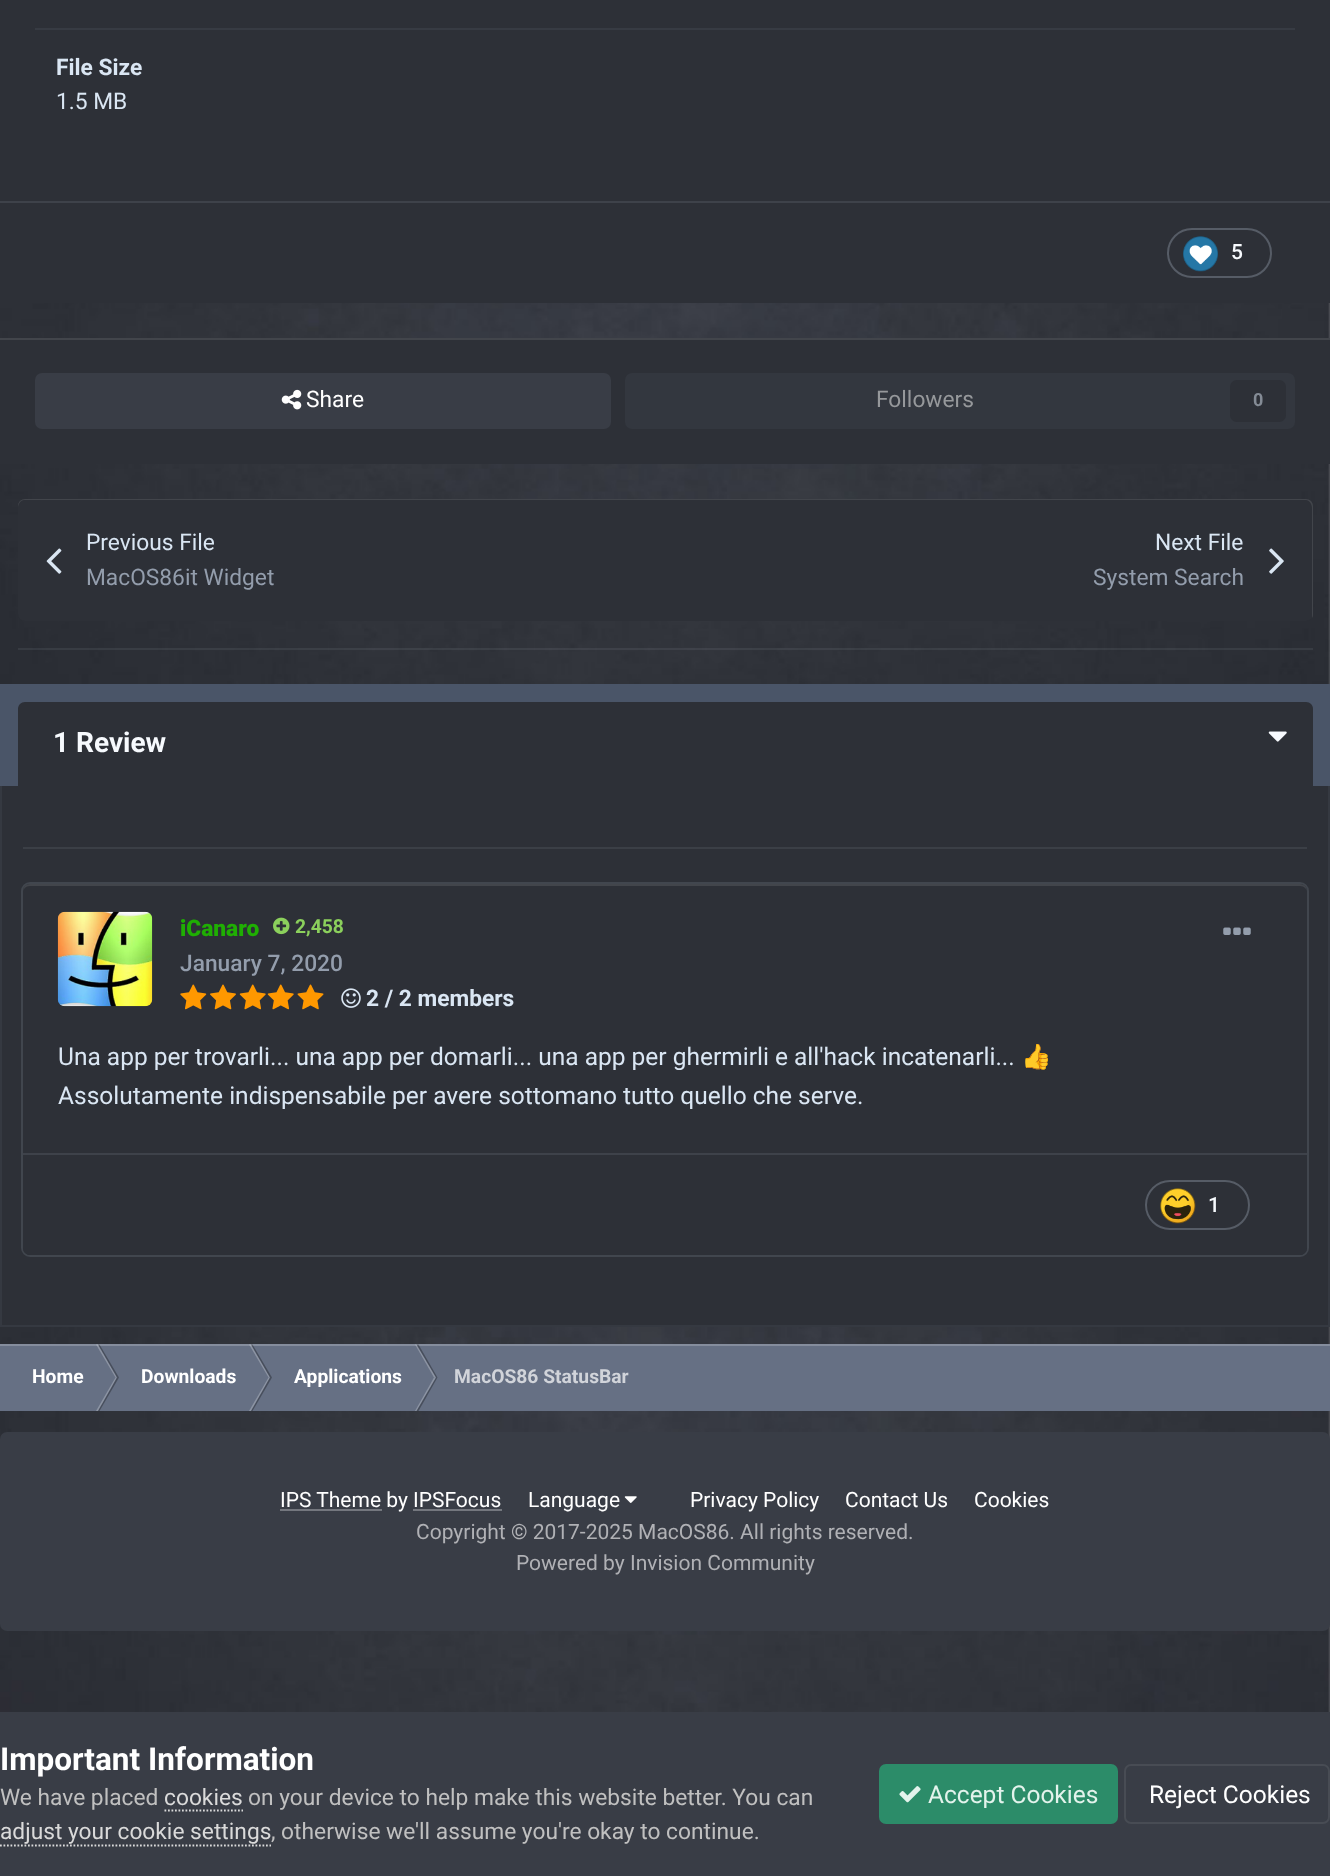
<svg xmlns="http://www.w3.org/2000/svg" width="1330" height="1876">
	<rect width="100%" height="100%" fill="#FFFFFF" />
	<image x="0" y="303" width="1330" height="1409" href="assets/img1.png" />
	<rect x="0" y="0" width="1330" height="303" fill="#2D3037" />
	<rect x="35" y="28" width="1260" height="2" fill="#373B43" />
	<text x="56" y="75" font-family="Roboto" font-size="22.75" font-weight="700" fill="#DAE6F3">File Size</text>
	<text x="56" y="109" font-family="Roboto" font-size="22.75" fill="#DAE6F3">1.5 MB</text>
	<rect x="0" y="201" width="1330" height="2" fill="#3E424A" />
	<rect x="1168" y="229" width="103" height="48" rx="24" fill="none" stroke="#565C66" stroke-width="2" />
	<image x="1183" y="236" width="35" height="36" href="assets/img2.png" />
	<text x="1231" y="259" font-family="Roboto" font-size="21" font-weight="500" fill="#F7FAFE">5</text>
	<rect x="0" y="340" width="1330" height="124" fill="#2D3037" />
	<rect x="0" y="338" width="1330" height="2" fill="#42454B" />
	<rect x="35" y="373" width="576" height="56" rx="7" fill="#393D46" />
	<image x="281" y="389" width="21" height="21" href="assets/img3.png" />
	<text x="306" y="407" font-family="Roboto" font-size="22.75" fill="#FFFFFF">Share</text>
	<rect x="625" y="373" width="670" height="56" rx="7" fill="#33373F" />
	<text x="876" y="407" font-family="Roboto" font-size="22.75" fill="#96989B">Followers</text>
	<rect x="1230" y="380" width="56" height="42" rx="7" fill="#2D3037" />
	<text x="1253" y="406" font-family="Roboto" font-size="18" font-weight="700" fill="#848B95">0</text>
	<rect x="18" y="499" width="1295" height="122" rx="7" fill="#2D3037" />
	<path d="M24 500H1306C1309 500 1312 504 1312 508V618C1313 617 1313 615 1313 614V506C1313 502 1310 499 1306 499H25C21 499 18 502 18 506V508C18 504 21 500 24 500Z" fill="#42454B" />
	<text x="86" y="550" font-family="Roboto" font-size="22.75" fill="#DAE6F3">Previous File</text>
	<image x="46" y="548" width="16" height="26" href="assets/img4.png" />
	<text x="86" y="585" font-family="Roboto" font-size="22.75" fill="#939DAC">MacOS86it Widget</text>
	<text x="1155" y="550" font-family="Roboto" font-size="22.75" fill="#DAE6F3">Next File</text>
	<image x="1269" y="548" width="15" height="26" href="assets/img5.png" />
	<text x="1093" y="585" font-family="Roboto" font-size="22.75" fill="#939DAC">System Search</text>
	<rect x="18" y="648" width="1295" height="2" fill="#DAE6F3" fill-opacity="0.08" />
	<rect x="0" y="684" width="1330" height="102" fill="#4A5568" />
	<path d="M25 702H1306C1310 702 1313 705 1313 709V786H18V709C18 705 21 702 25 702Z" fill="#2D3037" />
	<text x="53" y="752" font-family="Roboto" font-size="28" font-weight="700" fill="#F7FAFE">1 Review</text>
	<image x="1268" y="731" width="19" height="11" href="assets/img6.png" />
	<rect x="2" y="786" width="1326" height="539" fill="#2D3037" />
	<rect x="1328" y="786" width="2" height="541" fill="#353941" />
	<rect x="0" y="1325" width="1330" height="2" fill="#353941" />
	<rect x="0" y="786" width="2" height="541" fill="#353941" />
	<rect x="23" y="847" width="1284" height="2" fill="#3B3F46" />
	<rect x="22" y="883" width="1286" height="373" rx="8" fill="none" stroke="#41464E" stroke-width="2" />
	<rect x="23" y="884" width="1284" height="371" rx="7" fill="#2D3037" />
	<path d="M30 886H1300C1304 886 1307 889 1307 892C1307 888 1305 884 1300 884H30C25 884 23 888 23 892C23 889 26 886 30 886Z" fill="#FFFFFF" fill-opacity="0.1" />
	<image x="57" y="911" width="96" height="96" href="assets/img7.png" />
	<text x="180" y="936" font-family="Roboto" font-size="22.75" font-weight="900" fill="#1FAE03">iCanaro</text>
	<image x="273" y="917" width="17" height="18" href="assets/img8.png" />
	<text x="295" y="933" font-family="Roboto" font-size="19.25" font-weight="700" fill="#8BD05C">2,458</text>
	<text x="180" y="971" font-family="Roboto" font-size="22.75" font-weight="500" fill="#939DAC">January 7, 2020</text>
	<image x="180" y="984" width="27" height="26" href="assets/img9.png" />
	<image x="210" y="984" width="26" height="26" href="assets/img10.png" />
	<image x="239" y="984" width="27" height="26" href="assets/img11.png" />
	<image x="267" y="984" width="27" height="26" href="assets/img11.png" />
	<image x="297" y="984" width="27" height="26" href="assets/img12.png" />
	<image x="341" y="988" width="20" height="20" href="assets/img13.png" />
	<text x="366" y="1006" font-family="Roboto" font-size="22.75" font-weight="700" fill="#DAE6F3">2 / 2 members</text>
	<image x="1223" y="927" width="28" height="8" href="assets/img14.png" />
	<text x="58" y="1065" font-family="Roboto" font-size="24.5" fill="#DAE6F3">Una app per trovarli... una app per domarli... una app per ghermirli e all'hack incatenarli...</text>
	<text x="1021" y="1065" font-family="Noto Color Emoji" font-size="24.5" fill="#DAE6F3">👍</text>
	<text x="58" y="1104" font-family="Roboto" font-size="24.5" fill="#DAE6F3">Assolutamente indispensabile per avere sottomano tutto quello che serve.</text>
	<rect x="23" y="1153" width="1284" height="2" fill="#3E424A" />
	<rect x="1146" y="1181" width="103" height="48" rx="24" fill="none" stroke="#565C66" stroke-width="2" />
	<image x="1160" y="1188" width="36" height="36" href="assets/img15.png" />
	<text x="1208" y="1212" font-family="Roboto" font-size="21" font-weight="500" fill="#F7FAFE">1</text>
	<rect x="0" y="1346" width="1330" height="65" fill="#667084" />
	<rect x="0" y="1344" width="1330" height="2" fill="#858D9D" />
	<text x="32" y="1383" font-family="Roboto" font-size="19.25" font-weight="700" fill="#FFFFFF">Home</text>
	<path d="M96 1344.5H98L117 1377.5H115.5Z" fill="#FFFFFF" fill-opacity="0.25" />
	<path d="M98 1344.5H99.5L119 1377.5H117Z" fill="#000000" fill-opacity="0.3" />
	<path d="M96 1411H98L117 1377.5H115.5Z" fill="#8C94A3" />
	<path d="M98 1411H99.5L119 1377.5H117Z" fill="#000000" fill-opacity="0.3" />
	<text x="141" y="1383" font-family="Roboto" font-size="19.25" font-weight="700" fill="#FFFFFF">Downloads</text>
	<path d="M249 1344.5H251L270 1377.5H268.5Z" fill="#FFFFFF" fill-opacity="0.25" />
	<path d="M251 1344.5H252.5L272 1377.5H270Z" fill="#000000" fill-opacity="0.3" />
	<path d="M249 1411H251L270 1377.5H268.5Z" fill="#8C94A3" />
	<path d="M251 1411H252.5L272 1377.5H270Z" fill="#000000" fill-opacity="0.3" />
	<text x="294" y="1383" font-family="Roboto" font-size="19.25" font-weight="700" fill="#FFFFFF">Applications</text>
	<path d="M415 1344.5H416.5L436 1377.5H434Z" fill="#FFFFFF" fill-opacity="0.25" />
	<path d="M416.5 1344.5H418.5L437.5 1377.5H436Z" fill="#000000" fill-opacity="0.3" />
	<path d="M415 1411H416.5L436 1377.5H434Z" fill="#8C94A3" />
	<path d="M416.5 1411H418.5L437.5 1377.5H436Z" fill="#000000" fill-opacity="0.3" />
	<text x="454" y="1383" font-family="Roboto" font-size="19.25" font-weight="700" fill="#D1D4DA">MacOS86 StatusBar</text>
	<rect x="0" y="1432" width="1330" height="199" rx="7" fill="#393D46" />
	<rect x="280" y="1509" width="102" height="2" fill="#74777E" />
	<text x="280" y="1507" font-family="Roboto" font-size="21" fill="#FFFFFF">IPS Theme by IPSFocus</text>
	<rect x="413" y="1509" width="89" height="2" fill="#74777E" />
	<text x="528" y="1507" font-family="Roboto" font-size="21" fill="#FFFFFF">Language</text>
	<image x="624" y="1496" width="13" height="7" href="assets/img16.png" />
	<g font-family="Roboto" font-size="21" fill="#FFFFFF">
		<text x="690" y="1507">Privacy Policy</text>
		<text x="845" y="1507">Contact Us</text>
		<text x="974" y="1507">Cookies</text>
	</g>
	<g font-family="Roboto" font-size="21" fill="#B0B1B5">
		<text x="416" y="1539">Copyright © 2017-2025 MacOS86. All rights reserved.</text>
		<text x="516" y="1570">Powered by Invision Community</text>
	</g>
	<rect x="0" y="1712" width="1330" height="164" fill="#393D46" />
	<text x="0" y="1770" font-family="Roboto" font-size="31.5" font-weight="700" fill="#FFFFFF">Important Information</text>
	<text x="0" y="1805" font-family="Roboto" font-size="22.75" fill="#C0C0C0">We have placed</text>
	<text x="164" y="1805" font-family="Roboto" font-size="22.75" fill="#DADADA">cookies</text>
	<path d="M164.5 1810.5H243" fill="none" stroke="#DADADA" stroke-width="1.8" stroke-dasharray="1.75 1.75" />
	<text x="248" y="1805" font-family="Roboto" font-size="22.75" fill="#C0C0C0">on your device to help make this website better. You can</text>
	<text x="0" y="1839" font-family="Roboto" font-size="22.75" fill="#DADADA">adjust your cookie settings</text>
	<path d="M0 1845.5H271" fill="none" stroke="#DADADA" stroke-width="1.8" stroke-dasharray="1.75 1.75" />
	<text x="271" y="1839" font-family="Roboto" font-size="22.75" fill="#C0C0C0">, otherwise we'll assume you're okay to continue.</text>
	<rect x="879" y="1764" width="239" height="60" rx="7" fill="#2C8C69" />
	<image x="899" y="1786" width="22" height="17" href="assets/img17.png" />
	<text x="928" y="1803" font-family="Roboto" font-size="24.5" fill="#E3F3EC">Accept Cookies</text>
	<rect x="1125" y="1765" width="204" height="58" rx="6" fill="none" stroke="#484C54" stroke-width="2" />
	<text x="1149" y="1803" font-family="Roboto" font-size="24.5" fill="#FFFFFF">Reject Cookies</text>
</svg>
